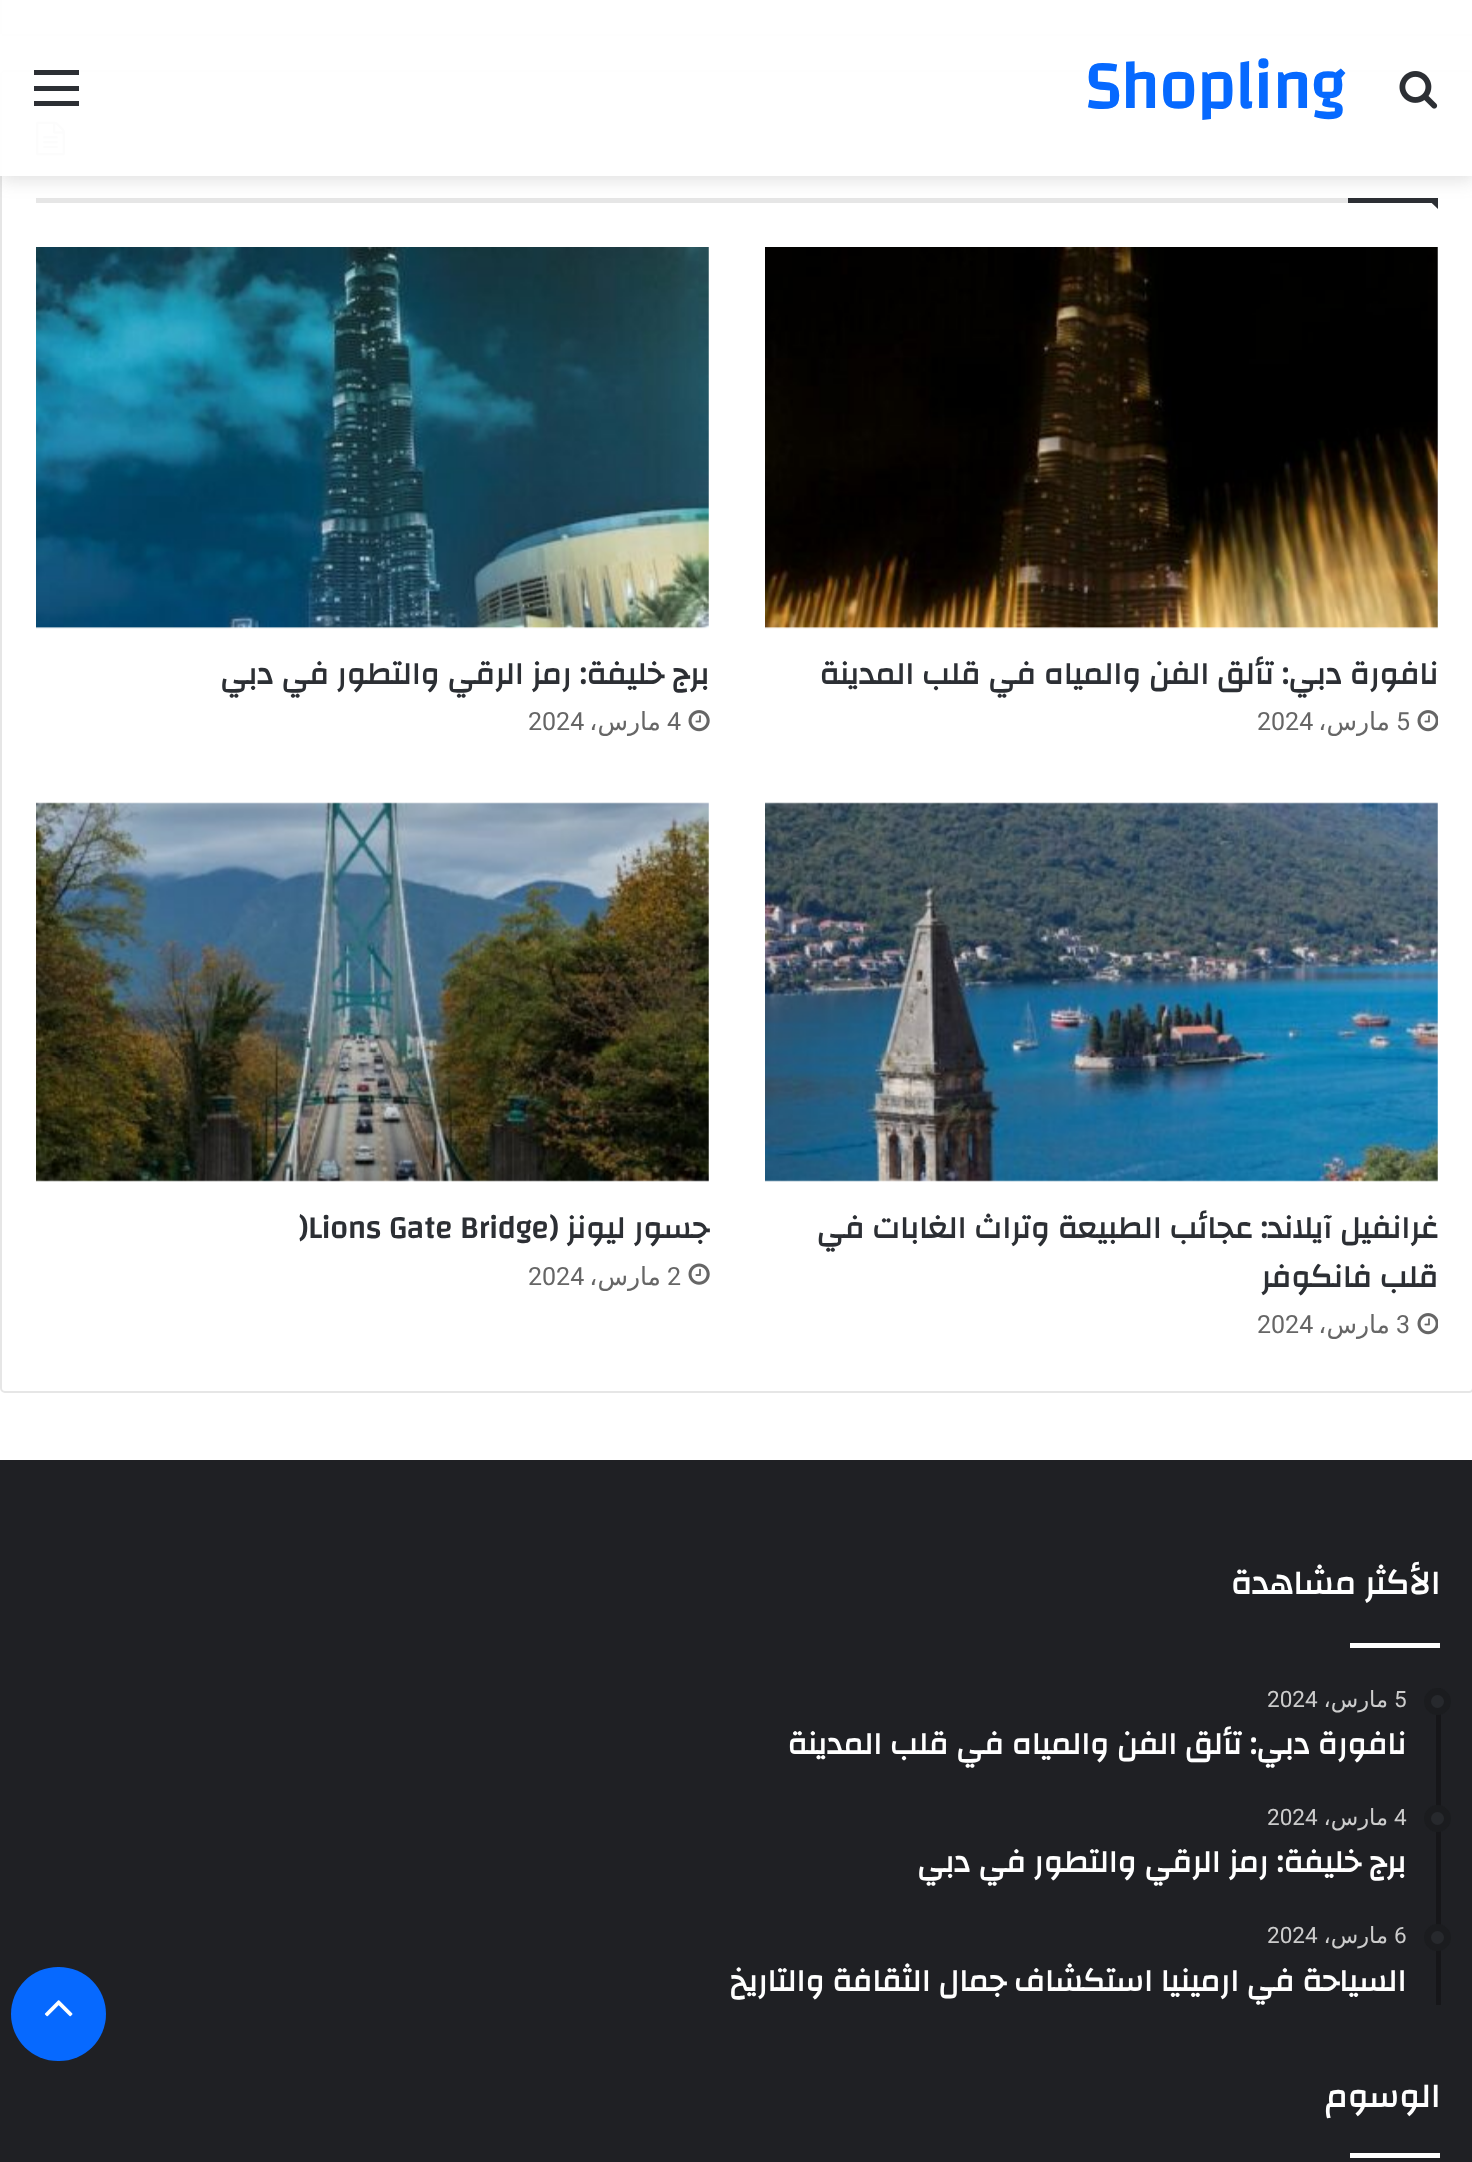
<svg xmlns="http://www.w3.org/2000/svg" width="1472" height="2162">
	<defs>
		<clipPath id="clip1"><path d="M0 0H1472V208H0ZM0 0H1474V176H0Z" clip-rule="evenodd" /></clipPath>
	</defs>
	<rect width="100%" height="100%" fill="#FFFFFF" />
	<rect x="2" y="34" width="1470" height="2" fill="#E6E6E6" />
	<rect x="0" y="0" width="2" height="34" fill="#E6E6E6" />
	<rect x="1" y="71" width="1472" height="1321" rx="4" fill="none" stroke="#E6E6E6" stroke-width="2" />
	<rect x="36" y="198" width="1312" height="5" fill="#E6E6E6" />
	<image x="36" y="121" width="29" height="35" href="assets/img2.png" />
	<path d="M1426.5 198H1438V209Z" fill="#2C2F34" />
	<rect x="1348" y="198" width="90" height="5" fill="#2C2F34" />
	<g clip-path="url(#clip1)">
		<rect x="0" y="5" width="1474" height="175" fill="#636363" fill-opacity="0.2" filter="blur(9px)" />
	</g>
	<rect x="0" y="0" width="1472" height="176" fill="#FFFFFF" fill-opacity="0.95" />
	<image x="1399" y="71" width="39" height="38" href="assets/img1.png" />
	<text x="1085" y="108" font-family="Changa" font-size="67.5" font-weight="700" fill="#0669FF">Shopling</text>
	<rect x="34" y="86" width="45" height="5" fill="#2C2F34" />
	<rect x="34" y="70" width="45" height="5" fill="#2C2F34" />
	<rect x="34" y="101" width="45" height="5" fill="#2C2F34" />
	<image x="765" y="247" width="673" height="382" href="assets/img3.png" />
	<text x="1438" y="684" font-family="Changa" font-size="31.5" font-weight="700" direction="rtl" fill="#2C2F34">نافورة دبي: تألق الفن والمياه في قلب المدينة</text>
	<image x="1417" y="710" width="21" height="22" href="assets/img4.png" />
	<text x="1396" y="730" font-family="Roboto" font-size="25" fill="#666666">5</text>
	<text x="1390" y="730" font-family="DejaVu Sans" font-size="25" direction="rtl" fill="#666666">مارس،</text>
	<text x="1257" y="730" font-family="Roboto" font-size="25" fill="#666666">2024</text>
	<image x="36" y="247" width="673" height="382" href="assets/img5.png" />
	<text x="709" y="684" font-family="Changa" font-size="31.5" font-weight="700" direction="rtl" fill="#2C2F34">برج خليفة: رمز الرقي والتطور في دبي</text>
	<image x="688" y="710" width="22" height="22" href="assets/img6.png" />
	<text x="667" y="730" font-family="Roboto" font-size="25" fill="#666666">4</text>
	<text x="661" y="730" font-family="DejaVu Sans" font-size="25" direction="rtl" fill="#666666">مارس،</text>
	<text x="528" y="730" font-family="Roboto" font-size="25" fill="#666666">2024</text>
	<image x="765" y="802" width="673" height="380" href="assets/img7.png" />
	<g font-family="Changa" font-size="31.5" font-weight="700" direction="rtl" fill="#2C2F34">
		<text x="1438" y="1238">غرانفيل آيلاند: عجائب الطبيعة وتراث الغابات في</text>
		<text x="1438" y="1287">قلب فانكوفر</text>
	</g>
	<image x="1417" y="1313" width="21" height="22" href="assets/img4.png" />
	<text x="1396" y="1333" font-family="Roboto" font-size="25" fill="#666666">3</text>
	<text x="1390" y="1333" font-family="DejaVu Sans" font-size="25" direction="rtl" fill="#666666">مارس،</text>
	<text x="1257" y="1333" font-family="Roboto" font-size="25" fill="#666666">2024</text>
	<image x="36" y="802" width="673" height="380" href="assets/img8.png" />
	<text x="709" y="1238" font-family="Changa" font-size="31.5" font-weight="700" direction="rtl" fill="#2C2F34">جسور ليونز (</text>
	<text x="298" y="1238" font-family="Changa" font-size="31.5" font-weight="700" fill="#2C2F34">)Lions Gate Bridge</text>
	<image x="688" y="1263" width="22" height="22" href="assets/img9.png" />
	<text x="667" y="1285" font-family="Roboto" font-size="25" fill="#666666">2</text>
	<text x="661" y="1285" font-family="DejaVu Sans" font-size="25" direction="rtl" fill="#666666">مارس،</text>
	<text x="528" y="1285" font-family="Roboto" font-size="25" fill="#666666">2024</text>
	<rect x="0" y="1460" width="1472" height="702" fill="#1F2024" />
	<text x="1440" y="1594" font-family="Changa" font-size="33.75" font-weight="700" direction="rtl" fill="#FFFFFF">الأكثر مشاهدة</text>
	<rect x="1350" y="1643" width="90" height="5" fill="#FFFFFF" />
	<rect x="1436" y="1688" width="5" height="317" fill="#161619" />
	<circle cx="1437.5" cy="1701.5" r="13.5" fill="#27292D" />
	<circle cx="1437.5" cy="1701.5" r="10" fill="none" stroke="#000000" stroke-opacity="0.3" stroke-width="7" />
	<text x="1394" y="1707" font-family="Roboto" font-size="22.5" fill="#CCCCCC">5</text>
	<text x="1388" y="1707" font-family="DejaVu Sans" font-size="22.5" direction="rtl" fill="#CCCCCC">مارس،</text>
	<text x="1267" y="1707" font-family="Roboto" font-size="22.5" fill="#CCCCCC">2024</text>
	<text x="1406" y="1754" font-family="Changa" font-size="31.5" font-weight="700" direction="rtl" fill="#FFFFFF">نافورة دبي: تألق الفن والمياه في قلب المدينة</text>
	<circle cx="1437.5" cy="1818.5" r="13.5" fill="#27292D" />
	<circle cx="1437.5" cy="1818.5" r="10" fill="none" stroke="#000000" stroke-opacity="0.3" stroke-width="7" />
	<text x="1394" y="1825" font-family="Roboto" font-size="22.5" fill="#CCCCCC">4</text>
	<text x="1388" y="1825" font-family="DejaVu Sans" font-size="22.5" direction="rtl" fill="#CCCCCC">مارس،</text>
	<text x="1267" y="1825" font-family="Roboto" font-size="22.5" fill="#CCCCCC">2024</text>
	<text x="1406" y="1872" font-family="Changa" font-size="31.5" font-weight="700" direction="rtl" fill="#FFFFFF">برج خليفة: رمز الرقي والتطور في دبي</text>
	<circle cx="1437.5" cy="1937.5" r="13.5" fill="#27292D" />
	<circle cx="1437.5" cy="1937.5" r="10" fill="none" stroke="#000000" stroke-opacity="0.3" stroke-width="7" />
	<text x="1394" y="1943" font-family="Roboto" font-size="22.5" fill="#CCCCCC">6</text>
	<text x="1388" y="1943" font-family="DejaVu Sans" font-size="22.5" direction="rtl" fill="#CCCCCC">مارس،</text>
	<text x="1267" y="1943" font-family="Roboto" font-size="22.5" fill="#CCCCCC">2024</text>
	<text x="1406" y="1991" font-family="Changa" font-size="31.5" font-weight="700" direction="rtl" fill="#FFFFFF">السياحة في ارمينيا استكشاف جمال الثقافة والتاريخ</text>
	<text x="1440" y="2107" font-family="Changa" font-size="33.75" font-weight="700" direction="rtl" fill="#FFFFFF">الوسوم</text>
	<rect x="1350" y="2153" width="90" height="5" fill="#FFFFFF" />
	<rect x="11" y="1967" width="95" height="94" rx="47" fill="#0669FF" />
	<image x="44" y="2000" width="29" height="17" href="assets/img10.png" />
</svg>
